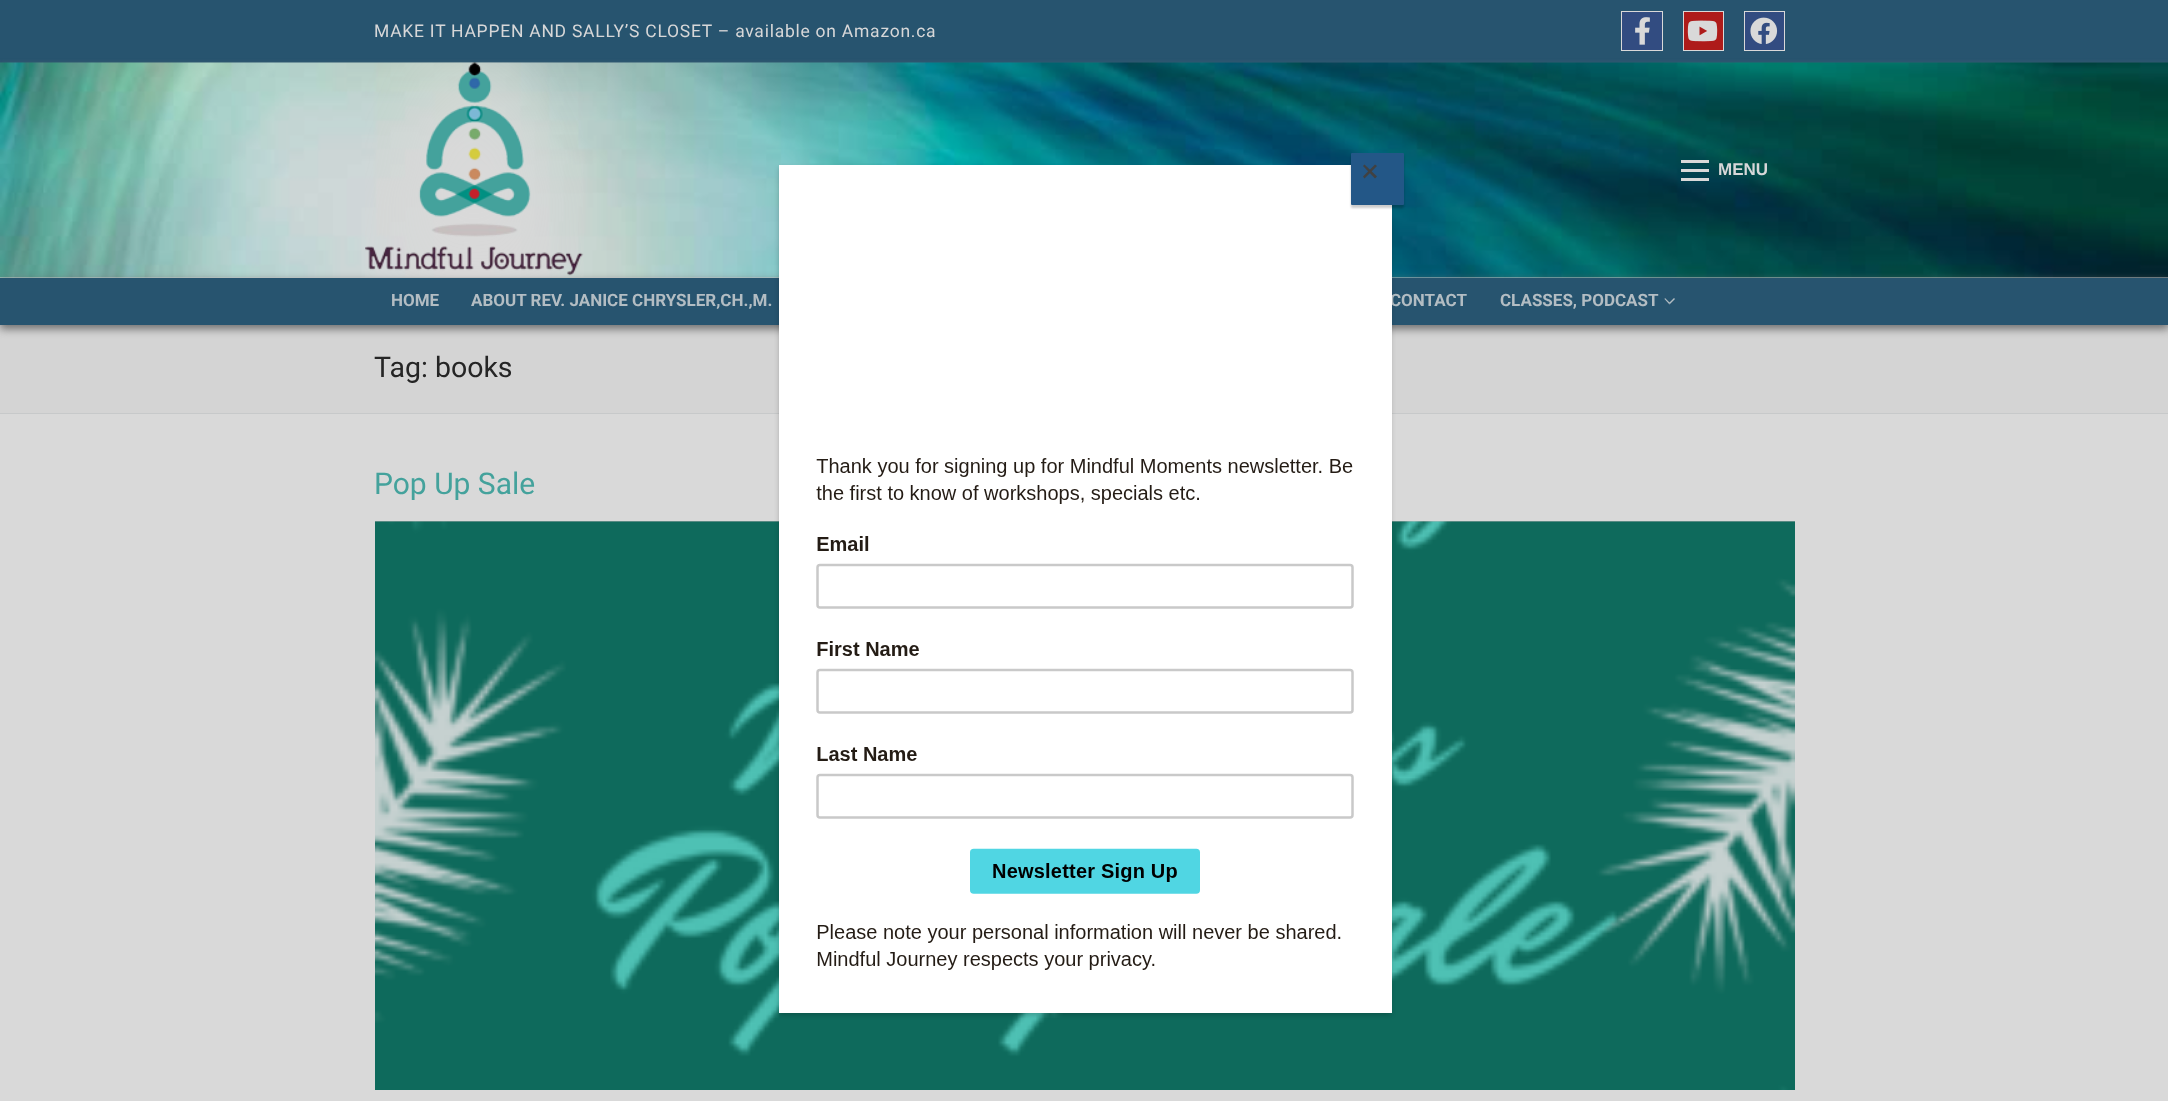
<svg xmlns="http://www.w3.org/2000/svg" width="2168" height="1101">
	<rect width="100%" height="100%" fill="#D9D9D9" />
	<rect x="0" y="0" width="2168" height="63" fill="#27546F" />
	<text x="374" y="37" font-family="Roboto" font-size="17.5" letter-spacing="0.75" fill="#D7D7D8">MAKE IT HAPPEN AND SALLY’S CLOSET – available on Amazon.ca</text>
	<rect x="1621.5" y="11.5" width="41" height="39" fill="#324C81" stroke="#D9D9D9" />
	<image x="1635" y="17" width="15" height="28" href="assets/img1.png" />
	<rect x="1683.5" y="11.5" width="40" height="39" fill="#AE1B1A" stroke="#D9D9D9" />
	<image x="1687" y="20" width="31" height="22" href="assets/img2.png" />
	<rect x="1744.5" y="11.5" width="40" height="39" fill="#324C81" stroke="#D9D9D9" />
	<image x="1750" y="17" width="28" height="27" href="assets/img3.png" />
	<rect x="0" y="66" width="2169" height="215" fill="#777777" filter="blur(3px)" />
	<rect x="0" y="277" width="2168" height="1" fill="#D9D9D9" />
	<image x="0" y="62" width="2168" height="216" href="assets/img4.png" />
	<rect x="0" y="325" width="2168" height="88" fill="#D4D4D4" />
	<rect x="0" y="281" width="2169" height="48" fill="#707070" filter="blur(4.5px)" />
	<image x="365" y="62" width="219" height="215" href="assets/img5.png" />
	<rect x="1681" y="169" width="28" height="3" fill="#D9D9D9" />
	<rect x="1681" y="160" width="28" height="3" fill="#D9D9D9" />
	<rect x="1681" y="178" width="28" height="3" fill="#D9D9D9" />
	<text x="1718" y="175" font-family="Liberation Sans" font-size="17" font-weight="700" fill="#D7D7D8">MENU</text>
	<rect x="0" y="278" width="2168" height="47" fill="#27546F" />
	<g font-family="Roboto" font-size="17" font-weight="700" fill="#B3BDC3">
		<text x="391" y="306">HOME</text>
		<text x="471" y="306">ABOUT REV. JANICE CHRYSLER,CH.,M.</text>
		<text x="1390" y="306">CONTACT</text>
		<text x="1500" y="306">CLASSES, PODCAST</text>
	</g>
	<path d="M1669.5 304.5L1664.5 299L1665 298L1669.5 302.5Z" fill="#B3BDC3" />
	<path d="M1675 299L1669.5 304.5V302.5L1674 298Z" fill="#D9D9D9" fill-opacity="0.79" />
	<rect x="0" y="413" width="2168" height="1" fill="#C7C9CA" />
	<text x="374" y="377" font-family="Roboto" font-size="28.5" fill="#252525">Tag: books</text>
	<text x="374" y="494" font-family="Roboto" font-size="30" fill="#44A29C">Pop Up Sale</text>
	<rect x="375" y="521" width="1420" height="1" fill="#B5B5B5" />
	<image x="375" y="521" width="1420" height="569" href="assets/img6.png" />
	<rect x="779" y="168" width="612" height="847" fill="#000000" fill-opacity="0.2" filter="blur(2.5px)" />
	<image x="779" y="165" width="613" height="848" href="assets/img7.png" />
	<rect x="1351" y="155" width="53" height="53" rx="1" fill="#000000" fill-opacity="0.2" filter="blur(1px)" />
	<rect x="1351" y="153" width="53" height="52" rx="1" fill="#235787" />
	<path d="M1375 164.5L1377 166L1364.5 178.5L1363 176.5Z" fill="#414141" />
	<path d="M1363 166L1364.5 164.5L1377 176.5L1375 178.5Z" fill="#414141" />
</svg>
